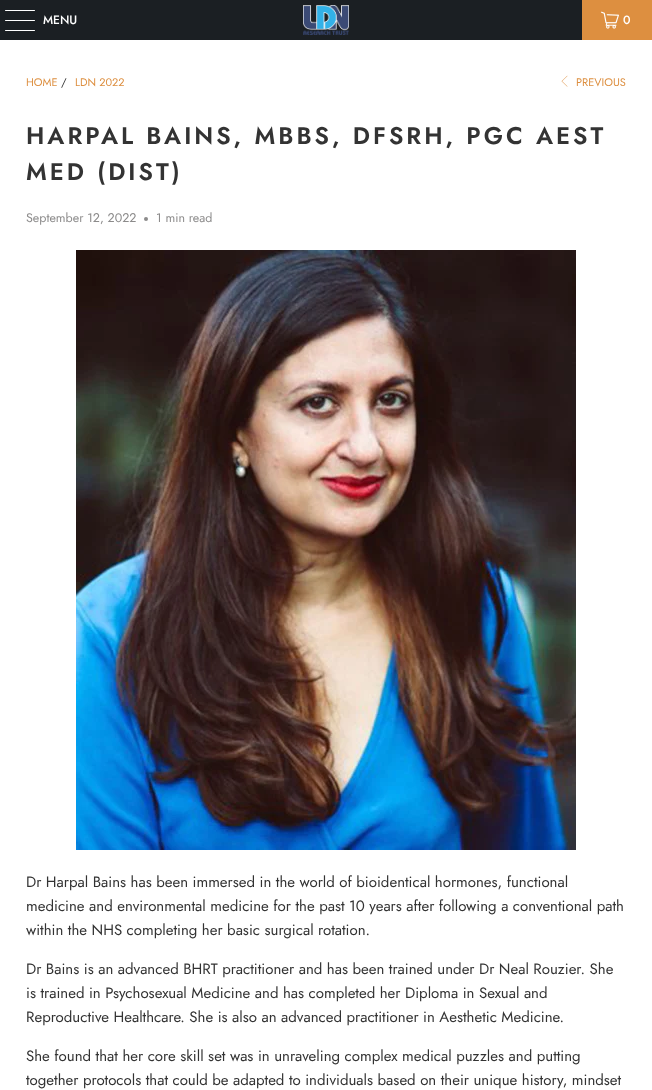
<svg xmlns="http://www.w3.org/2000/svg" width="652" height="1090">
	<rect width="100%" height="100%" fill="#FFFFFF" />
	<rect x="0" y="0" width="582" height="40" fill="#1B1F23" />
	<rect x="5" y="10" width="30" height="1" rx="0.5" fill="#FFFFFF" />
	<rect x="5" y="20" width="30" height="1" rx="0.5" fill="#FFFFFF" />
	<rect x="5" y="30" width="30" height="1" rx="0.5" fill="#FFFFFF" />
	<text x="43" y="24" font-family="Jost" font-size="12" font-weight="500" fill="#FFFFFF">MENU</text>
	<image x="303" y="5" width="46" height="30" href="assets/img1.png" />
	<rect x="582" y="0" width="70" height="40" fill="#DD8F40" />
	<image x="601" y="11" width="18" height="18" href="assets/img2.png" />
	<text x="623" y="24" font-family="Jost" font-size="12" font-weight="500" fill="#FFFFFF">0</text>
	<text x="26" y="86" font-family="Jost" font-size="11" fill="#DD8F40">HOME</text>
	<text x="61" y="86" font-family="Jost" font-size="11" fill="#333333">/</text>
	<text x="75" y="86" font-family="Jost" font-size="11" fill="#DD8F40">LDN 2022</text>
	<image x="561" y="75" width="7" height="12" href="assets/img3.png" />
	<text x="576" y="86" font-family="Jost" font-size="11" fill="#DD8F40">PREVIOUS</text>
	<g font-family="Jost" font-size="24" font-weight="600" letter-spacing="3" fill="#333333">
		<text x="26" y="144">HARPAL BAINS, MBBS, DFSRH, PGC AEST</text>
		<text x="26" y="180">MED (DIST)</text>
	</g>
	<text x="26" y="222" font-family="Jost" font-size="12.5" fill="#8C8B8B">September 12, 2022</text>
	<circle cx="146" cy="219" r="2" fill="#8C8B8B" />
	<text x="156" y="222" font-family="Jost" font-size="12.5" fill="#8C8B8B">1 min read</text>
	<image x="76" y="250" width="500" height="600" href="assets/img4.png" />
	<g font-family="Jost" font-size="15" fill="#333333">
		<text x="26" y="887">Dr Harpal Bains has been immersed in the world of bioidentical hormones, functional</text>
		<text x="26" y="911">medicine and environmental medicine for the past 10 years after following a conventional path</text>
		<text x="26" y="935">within the NHS completing her basic surgical rotation.</text>
		<text x="26" y="974">Dr Bains is an advanced BHRT practitioner and has been trained under Dr Neal Rouzier. She</text>
		<text x="26" y="998">is trained in Psychosexual Medicine and has completed her Diploma in Sexual and</text>
		<text x="26" y="1022">Reproductive Healthcare. She is also an advanced practitioner in Aesthetic Medicine.</text>
		<text x="26" y="1061">She found that her core skill set was in unraveling complex medical puzzles and putting</text>
		<text x="26" y="1085">together protocols that could be adapted to individuals based on their unique history, mindset</text>
	</g>
</svg>
